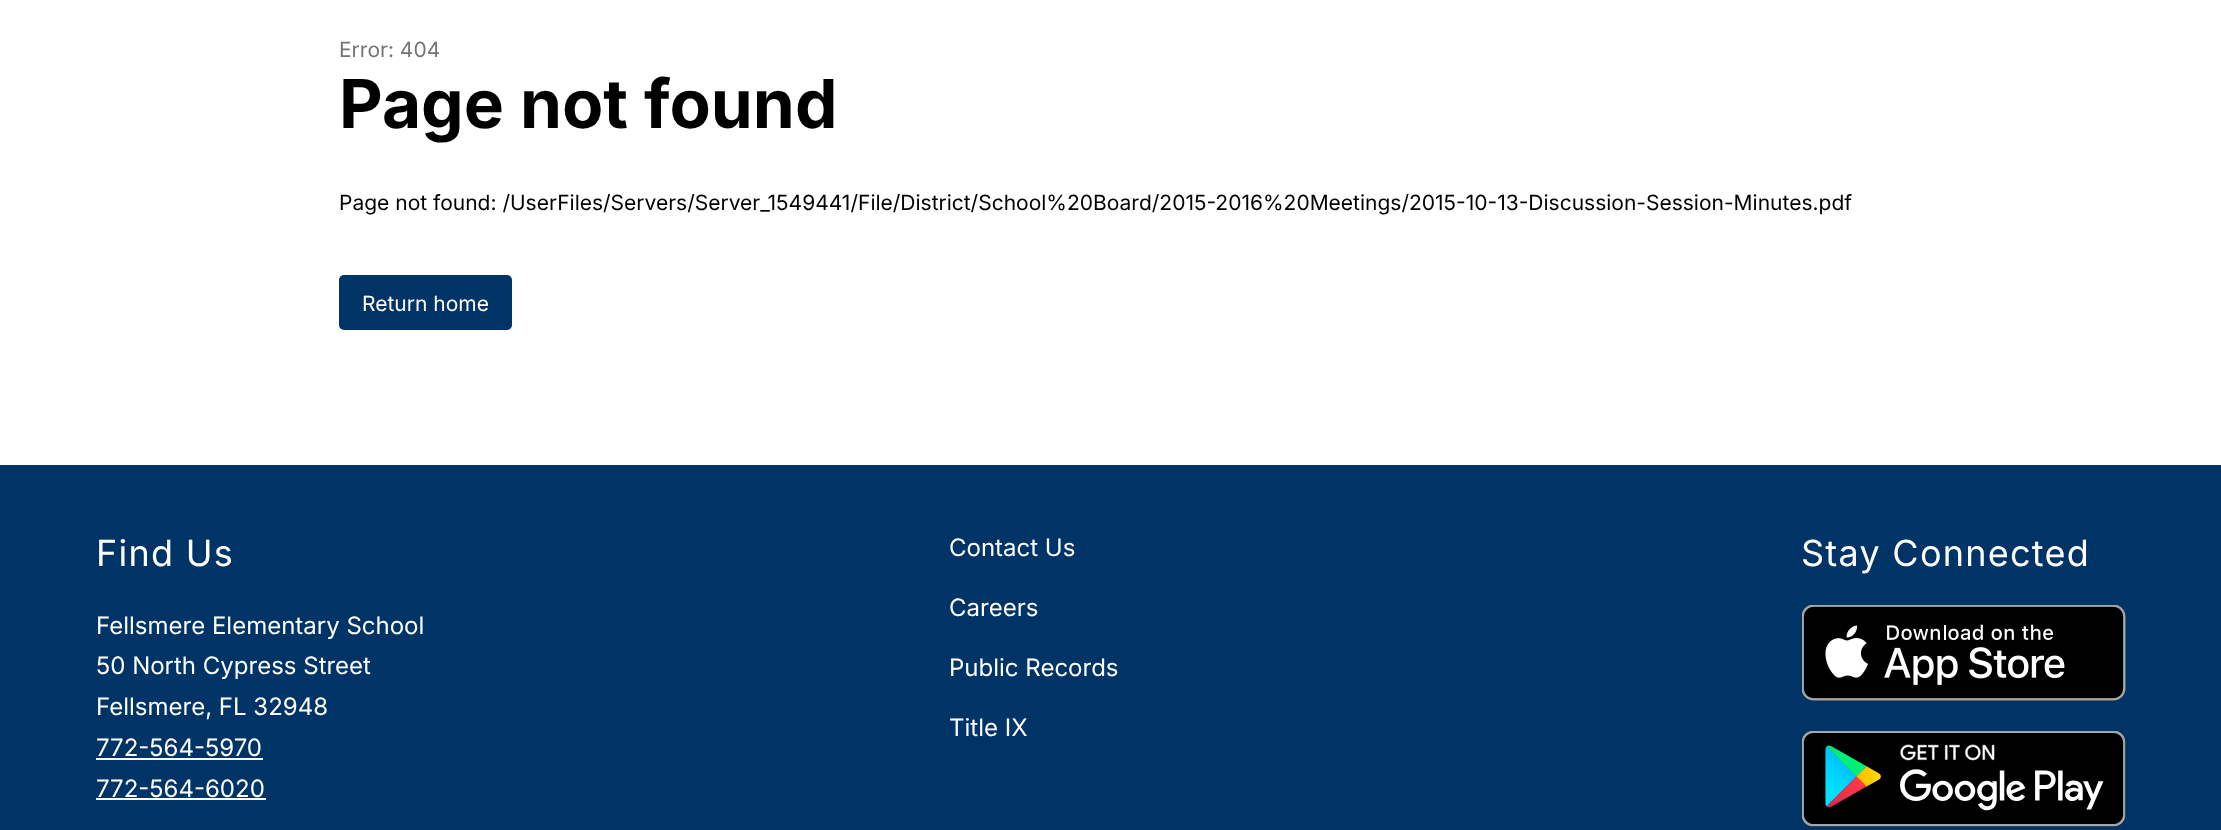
<svg xmlns="http://www.w3.org/2000/svg" width="2221" height="830">
	<rect width="100%" height="100%" fill="#FFFFFF" />
	<text x="339" y="57" font-family="Inter" font-size="21" fill="#747474">Error: 404</text>
	<text x="339" y="128" font-family="Inter" font-size="67.5" font-weight="700" fill="#000000">Page not found</text>
	<text x="339" y="210" font-family="Inter" font-size="21" fill="#000000">Page not found: /UserFiles/Servers/Server_1549441/File/District/School%20Board/2015-2016%20Meetings/2015-10-13-Discussion-Session-Minutes.pdf</text>
	<rect x="339" y="275" width="173" height="55" rx="5" fill="#003366" />
	<text x="362" y="311" font-family="Inter" font-size="21" fill="#FFFFFF">Return home</text>
	<rect x="0" y="465" width="2221" height="365" fill="#003366" />
	<text x="96" y="566" font-family="Inter" font-size="36" letter-spacing="1.25" fill="#FFFFFF">Find Us</text>
	<g font-family="Inter" font-size="24" fill="#FFFFFF">
		<text x="96" y="634">Fellsmere Elementary School</text>
		<text x="96" y="674">50 North Cypress Street</text>
		<text x="96" y="715">Fellsmere, FL 32948</text>
		<text x="96" y="756">772-564-5970</text>
	</g>
	<rect x="96" y="758" width="167" height="2" fill="#FFFFFF" />
	<text x="96" y="797" font-family="Inter" font-size="24" fill="#FFFFFF">772-564-6020</text>
	<rect x="96" y="798" width="170" height="2" fill="#FFFFFF" />
	<g font-family="Inter" font-size="24" fill="#FFFFFF">
		<text x="949" y="556">Contact Us</text>
		<text x="949" y="616">Careers</text>
		<text x="949" y="676">Public Records</text>
		<text x="949" y="736">Title IX</text>
	</g>
	<text x="1801" y="566" font-family="Inter" font-size="36" letter-spacing="1.25" fill="#FFFFFF">Stay Connected</text>
	<image x="1802" y="605" width="324" height="96" href="assets/img1.png" />
	<image x="1802" y="731" width="324" height="96" href="assets/img2.png" />
</svg>
